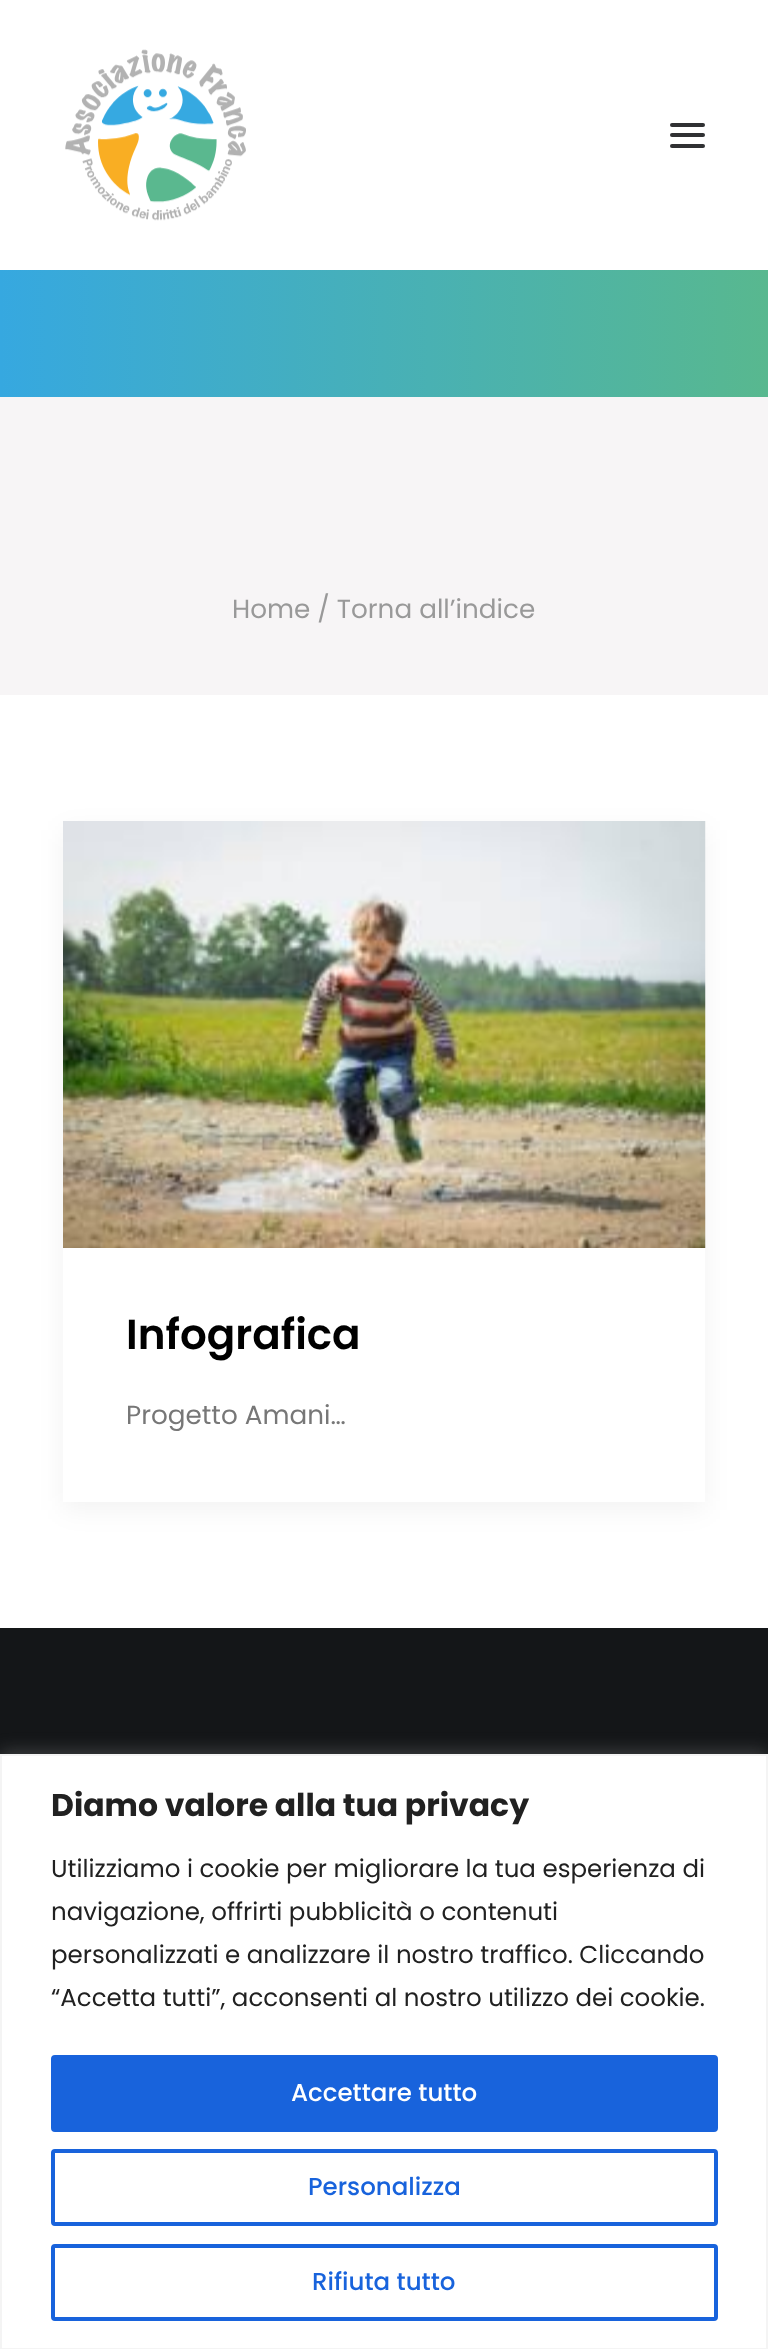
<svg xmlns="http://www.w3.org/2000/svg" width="768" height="2349">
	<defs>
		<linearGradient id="g1" gradientUnits="userSpaceOnUse" x1="0" y1="221" x2="768" y2="220"><stop offset="0" stop-color="#36A8E0" /><stop offset="1" stop-color="#58B88F" /></linearGradient>
	</defs>
	<rect width="100%" height="100%" fill="#141618" />
	<rect x="0" y="0" width="768" height="270" fill="#FFFFFF" />
	<image x="65" y="49" width="181" height="172" href="assets/img1.png" />
	<rect x="670" y="133" width="35" height="4" rx="2" fill="#303133" />
	<rect x="670" y="123" width="35" height="4" rx="2" fill="#303133" />
	<rect x="670" y="144" width="35" height="4" rx="2" fill="#303133" />
	<rect x="0" y="270" width="768" height="127" fill="url(#g1)" />
	<rect x="0" y="397" width="768" height="298" fill="#F7F5F6" />
	<text x="232" y="618" font-family="Poppins" font-size="26.25" fill="#999999">Home / Torna all’indice</text>
	<rect x="0" y="695" width="768" height="933" fill="#FFFFFF" />
	<rect x="63" y="830" width="642" height="680" fill="#000000" fill-opacity="0.05" filter="blur(13px)" />
	<rect x="63" y="1248" width="642" height="254" fill="#FFFFFF" />
	<image x="63" y="821" width="643" height="427" href="assets/img2.png" />
	<text x="126" y="1349" font-family="Poppins" font-size="42" font-weight="600" fill="#000000">Infografica</text>
	<text x="126" y="1424" font-family="Poppins" font-size="26.25" fill="#777777">Progetto Amani…</text>
	<rect x="0" y="1752" width="768" height="597" fill="#ACABAB" fill-opacity="0.3" filter="blur(9px)" />
	<rect x="1" y="1755" width="766" height="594" fill="#FFFFFF" stroke="#F4F4F4" stroke-width="2" />
	<text x="51" y="1816" font-family="Poppins" font-size="31.5" font-weight="700" fill="#212121">Diamo valore alla tua privacy</text>
	<g font-family="Poppins" font-size="24.5" fill="#212121">
		<text x="51" y="1877">Utilizziamo i cookie per migliorare la tua esperienza di</text>
		<text x="51" y="1920">navigazione, offrirti pubblicità o contenuti</text>
		<text x="51" y="1963">personalizzati e analizzare il nostro traffico. Cliccando</text>
		<text x="51" y="2006">“Accetta tutti”, acconsenti al nostro utilizzo dei cookie.</text>
	</g>
	<rect x="53" y="2057" width="663" height="73" rx="2" fill="#1863DC" stroke="#1863DC" stroke-width="4" />
	<text x="291" y="2101" font-family="Poppins" font-size="24.5" font-weight="500" fill="#FFFFFF">Accettare tutto</text>
	<rect x="53" y="2151" width="663" height="73" rx="2" fill="none" stroke="#1863DC" stroke-width="4" />
	<text x="308" y="2195" font-family="Poppins" font-size="24.5" font-weight="500" fill="#1863DC">Personalizza</text>
	<rect x="53" y="2246" width="663" height="73" rx="2" fill="none" stroke="#1863DC" stroke-width="4" />
	<text x="312" y="2290" font-family="Poppins" font-size="24.5" font-weight="500" fill="#1863DC">Rifiuta tutto</text>
</svg>
